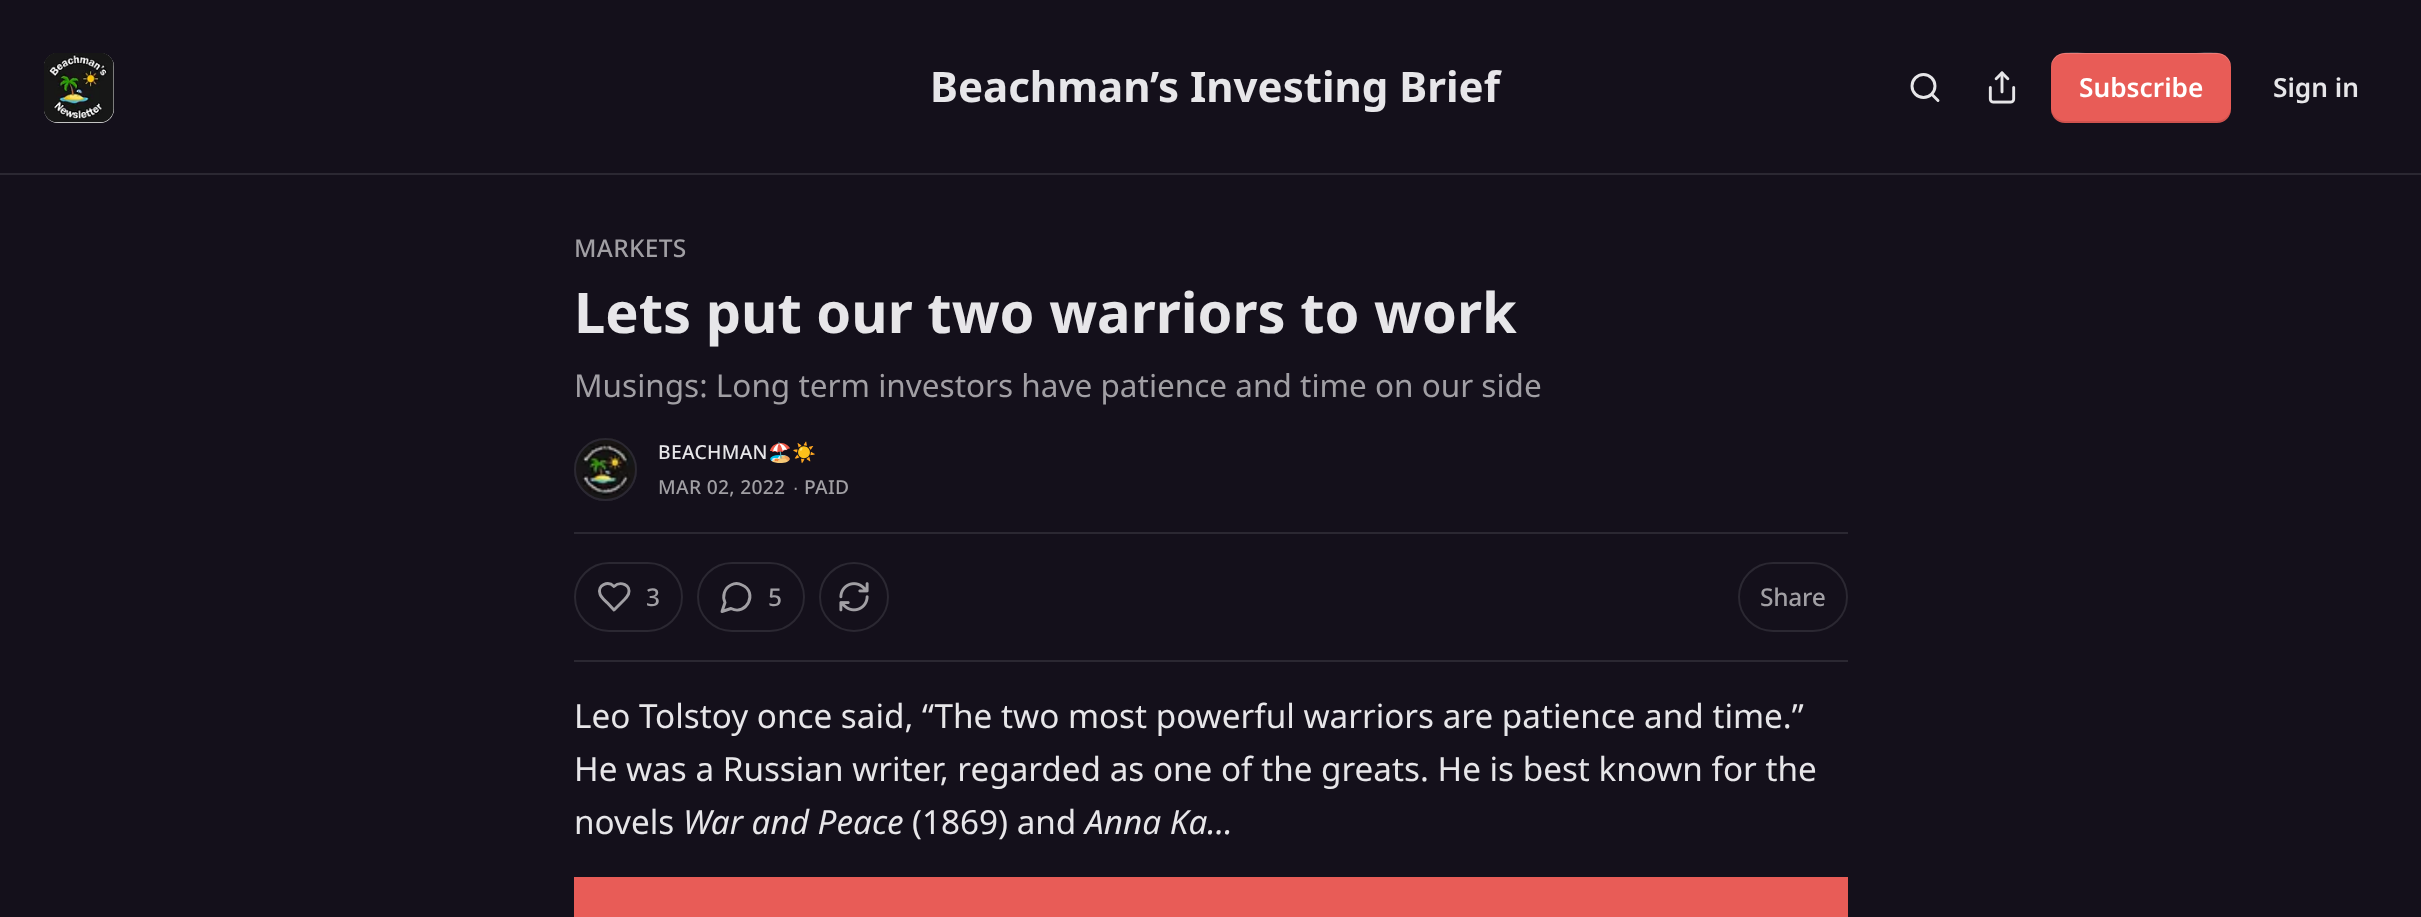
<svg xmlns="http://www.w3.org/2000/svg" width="2421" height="917">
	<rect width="100%" height="100%" fill="#14101B" />
	<rect x="0" y="173" width="2421" height="2" fill="#2B2832" />
	<rect x="44" y="53" width="70" height="70" rx="14" fill="#FFFFFF" />
	<image x="44" y="53" width="70" height="70" href="assets/img1.png" />
	<text x="930" y="102" font-family="Noto Sans" font-size="42" font-weight="700" fill="#E7E6E9">Beachman’s Investing Brief</text>
	<circle cx="1923.5" cy="86" r="11.5" fill="none" stroke="#E7E6E9" stroke-width="2.9" />
	<path d="M1938 100.5L1932 94.5" fill="none" stroke="#E7E6E9" stroke-width="2.9" stroke-linecap="round" stroke-linejoin="round" />
	<image x="1988" y="71" width="28" height="33" href="assets/img2.png" />
	<rect x="2051" y="53" width="180" height="70" rx="14" fill="#E85C57" />
	<path d="M2051 107C2051 129 2075 123 2090 123H2192C2207 123 2231 129 2231 107C2231 114 2225 121 2217 121H2065C2057 121 2051 114 2051 107Z" fill="#000000" fill-opacity="0.1" />
	<path d="M2065 54H2217C2225 54 2231 61 2231 68C2231 47 2204 53 2192 53H2090C2078 53 2051 47 2051 68C2051 61 2057 54 2065 54Z" fill="#FFFFFF" fill-opacity="0.2" />
	<text x="2079" y="97" font-family="Noto Sans" font-size="26.25" font-weight="600" fill="#FFFFFF">Subscribe</text>
	<text x="2273" y="97" font-family="Noto Sans" font-size="26.25" font-weight="600" fill="#E7E6E9">Sign in</text>
	<text x="574" y="257" font-family="Noto Sans" font-size="24.5" font-weight="500" letter-spacing="0.3" fill="#A19FA4">MARKETS</text>
	<text x="574" y="333" font-family="Noto Sans" font-size="56" font-weight="700" fill="#E7E6E9">Lets put our two warriors to work</text>
	<text x="574" y="397" font-family="Noto Sans" font-size="31.5" fill="#A19FA4">Musings: Long term investors have patience and time on our side</text>
	<circle cx="605.5" cy="469.5" r="30.5" fill="none" stroke="#2B2832" stroke-width="2" />
	<image x="574" y="438" width="63" height="62" href="assets/img3.png" />
	<circle cx="605.5" cy="469.5" r="30.5" fill="none" stroke="#2B2832" stroke-width="2" />
	<text x="658" y="459" font-family="Noto Sans" font-size="19.25" font-weight="500" letter-spacing="0.3" fill="#E7E6E9">BEACHMAN</text>
	<text x="768" y="459" font-family="Noto Color Emoji" font-size="19.25" letter-spacing="0.3" fill="#E7E6E9">🏖️☀️</text>
	<text x="658" y="494" font-family="Noto Sans" font-size="19.25" font-weight="500" letter-spacing="0.3" fill="#A19FA4">MAR 02, 2022</text>
	<text x="793" y="494" font-family="Liberation Sans" font-size="19.25" letter-spacing="0.3" fill="#A19FA4">∙</text>
	<text x="804" y="494" font-family="Noto Sans" font-size="19.25" font-weight="500" letter-spacing="0.3" fill="#A19FA4">PAID</text>
	<rect x="574" y="532" width="1274" height="2" fill="#2B2832" />
	<rect x="574" y="660" width="1274" height="2" fill="#2B2832" />
	<rect x="575" y="563" width="107" height="68" rx="34" fill="none" stroke="#2B2832" stroke-width="2" />
	<path d="M624.5 599.5C626 598 627.5 596 628.5 594C631.5 585 620.5 580.5 614 586.5C608 580.5 597 585 600 594C601 597.5 605 600.5 607.5 603L614 610Z" fill="none" stroke="#A19FA4" stroke-width="2.9" stroke-linecap="round" stroke-linejoin="round" />
	<text x="646" y="606" font-family="Noto Sans" font-size="24.5" font-weight="500" letter-spacing="-0.25" fill="#A19FA4">3</text>
	<rect x="698" y="563" width="106" height="68" rx="34" fill="none" stroke="#2B2832" stroke-width="2" />
	<path d="M731 608.5C746.5 616.5 758.5 592 742 585C738.5 583 734.5 583 731 585C724.5 588 722 596 725 602.5L722 611.5Z" fill="none" stroke="#A19FA4" stroke-width="2.9" stroke-linecap="round" stroke-linejoin="round" />
	<text x="768" y="606" font-family="Noto Sans" font-size="24.5" font-weight="500" letter-spacing="-0.25" fill="#A19FA4">5</text>
	<circle cx="854" cy="597" r="34" fill="none" stroke="#2B2832" stroke-width="2" />
	<image x="839" y="582" width="30" height="30" href="assets/img4.png" />
	<rect x="1739" y="563" width="108" height="68" rx="34" fill="none" stroke="#2B2832" stroke-width="2" />
	<text x="1760" y="606" font-family="Noto Sans" font-size="24.5" font-weight="500" letter-spacing="-0.25" fill="#A19FA4">Share</text>
	<g font-family="Noto Sans" font-size="33.25" fill="#E7E6E9">
		<text x="574" y="728">Leo Tolstoy once said, “The two most powerful warriors are patience and time.”</text>
		<text x="574" y="781">He was a Russian writer, regarded as one of the greats. He is best known for the</text>
		<text x="574" y="834">novels</text>
	</g>
	<text x="683" y="834" font-family="Noto Sans" font-size="33.25" font-style="italic" fill="#E7E6E9">War and Peace</text>
	<text x="912" y="834" font-family="Noto Sans" font-size="33.25" fill="#E7E6E9">(1869) and</text>
	<text x="1085" y="834" font-family="Noto Sans" font-size="33.25" font-style="italic" fill="#E7E6E9">Anna Ka…</text>
	<rect x="574" y="877" width="1274" height="40" fill="#E85C57" />
</svg>
